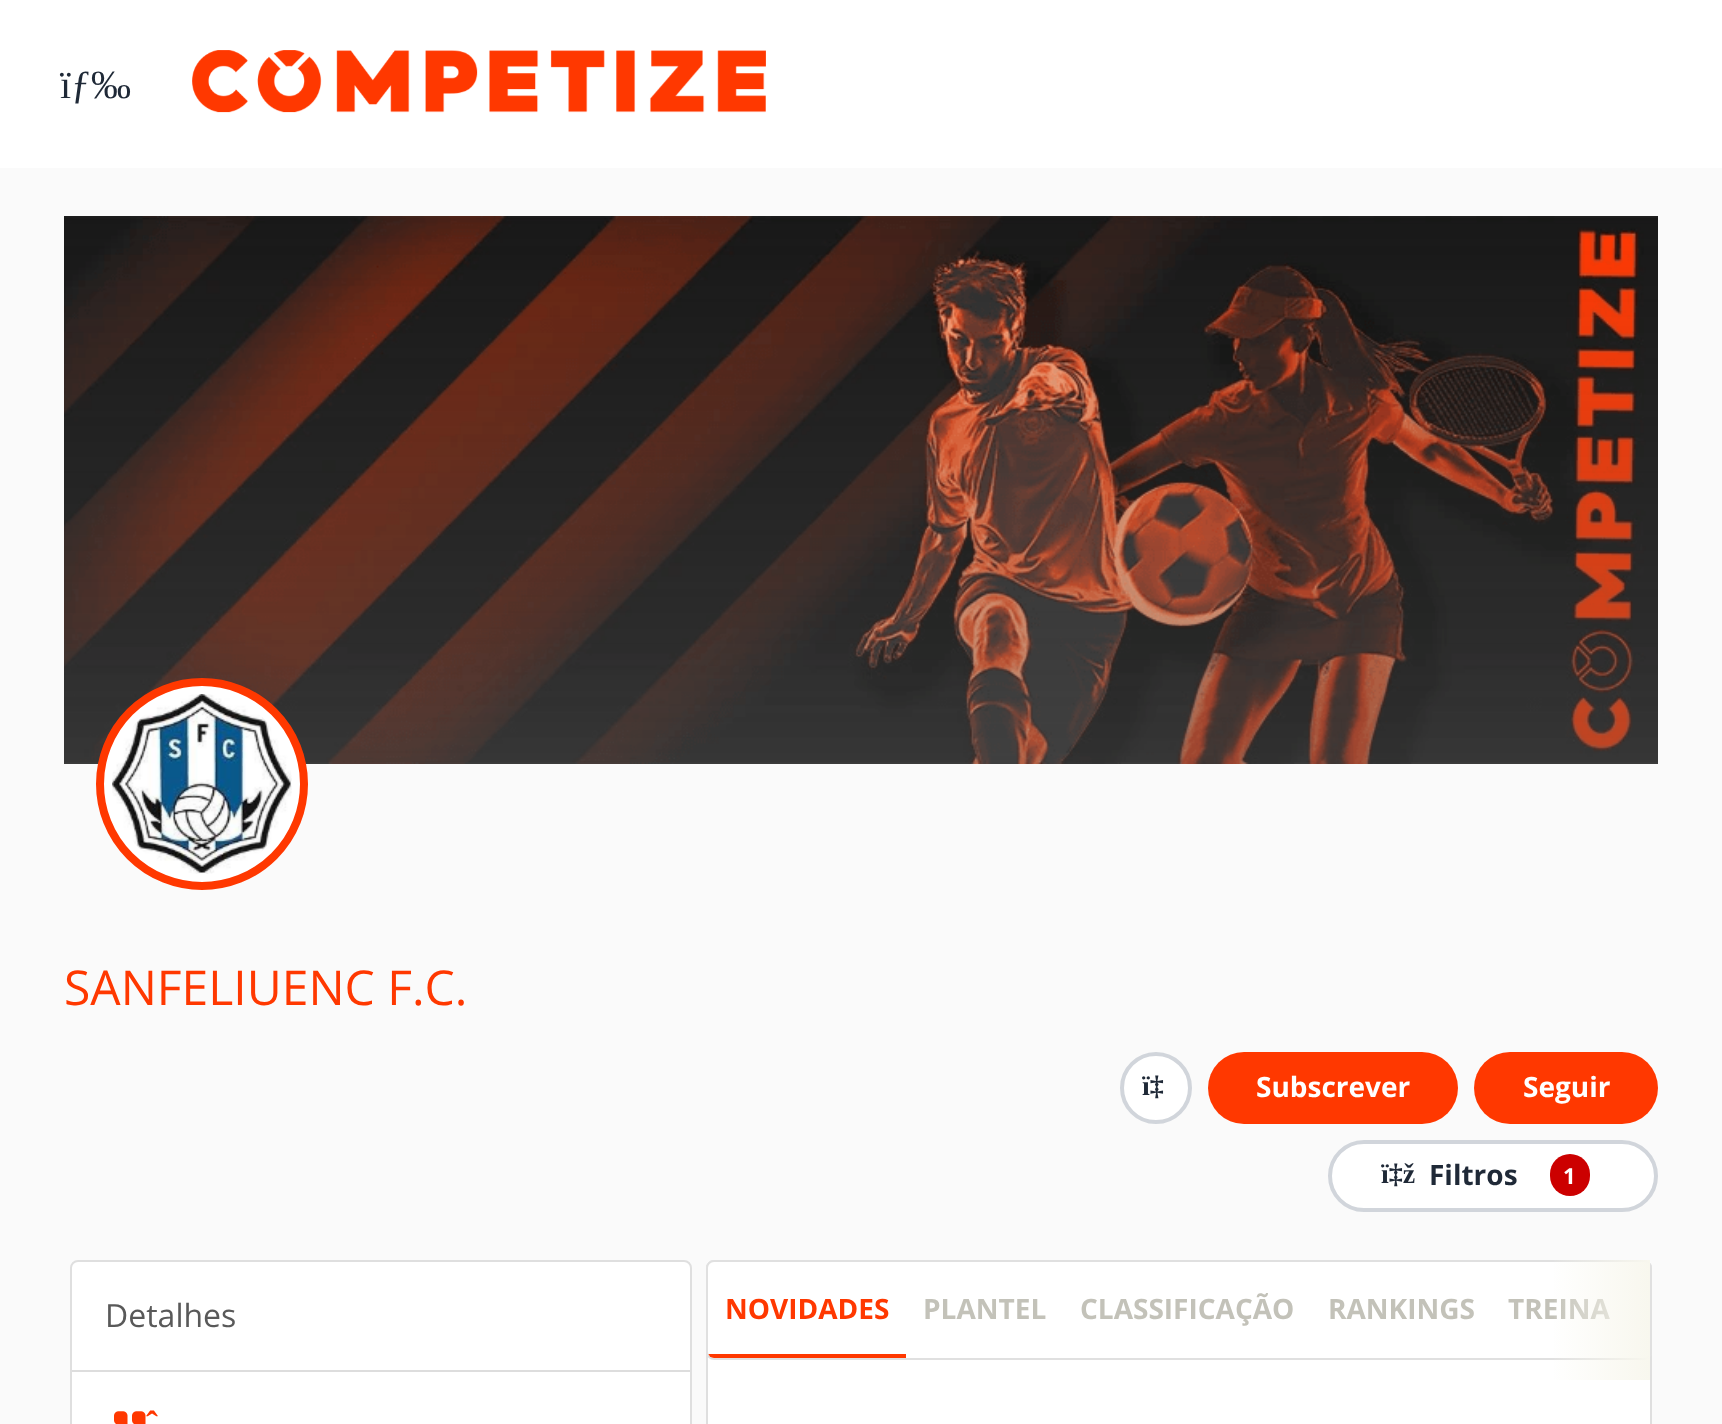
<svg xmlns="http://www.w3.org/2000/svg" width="1722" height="1424">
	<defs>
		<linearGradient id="g1" gradientUnits="userSpaceOnUse" x1="1650" y1="1320" x2="1550" y2="1320"><stop offset="0" stop-color="#F8F7EE" /><stop offset="1" stop-color="#F8F7EE" stop-opacity="0" /></linearGradient>
		<clipPath id="clip1"><rect x="708" y="1262" width="942" height="96" rx="6" /></clipPath>
	</defs>
	<rect width="100%" height="100%" fill="#FAFAFA" />
	<rect x="0" y="0" width="1722" height="168" fill="#FFFFFF" />
	<text x="60" y="98" font-family="Liberation Serif" font-size="40" fill="#1F2937">ïƒ‰</text>
	<image x="192" y="50" width="574" height="63" href="assets/img1.png" />
	<image x="64" y="216" width="1594" height="548" href="assets/img2.png" />
	<circle cx="202" cy="784" r="102" fill="#FFFFFF" stroke="#FF3800" stroke-width="8" />
	<image x="112" y="694" width="180" height="180" href="assets/img3.png" />
	<text x="64" y="1005" font-family="Open Sans" font-size="48" fill="#FF3800">SANFELIUENC F.C.</text>
	<circle cx="1156" cy="1088" r="34" fill="#FFFFFF" stroke="#D1D5DB" stroke-width="4" />
	<text x="1142" y="1095" font-family="Liberation Serif" font-size="28" font-weight="700" fill="#1F2937">ï‡</text>
	<rect x="1208" y="1052" width="250" height="72" rx="36" fill="#FF3800" />
	<text x="1256" y="1097" font-family="Open Sans" font-size="28" font-weight="700" fill="#FFFFFF">Subscrever</text>
	<rect x="1474" y="1052" width="184" height="72" rx="36" fill="#FF3800" />
	<text x="1523" y="1097" font-family="Open Sans" font-size="28" font-weight="700" fill="#FFFFFF">Seguir</text>
	<rect x="1330" y="1142" width="326" height="68" rx="34" fill="#FFFFFF" stroke="#D1D5DB" stroke-width="4" />
	<text x="1381" y="1183" font-family="Liberation Serif" font-size="28" font-weight="700" fill="#1F2937">ï‡ž</text>
	<text x="1429" y="1185" font-family="Open Sans" font-size="28" font-weight="700" fill="#1F2937">Filtros</text>
	<rect x="1550" y="1154" width="40" height="42" rx="20" fill="#CC0000" />
	<text x="1563" y="1184" font-family="Open Sans" font-size="22" font-weight="700" fill="#FFFFFF">1</text>
	<rect x="71" y="1261" width="620" height="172" rx="7" fill="#FFFFFF" stroke="#DFDFDF" stroke-width="2" />
	<rect x="72" y="1370" width="618" height="2" fill="#DDDDDD" />
	<text x="105" y="1327" font-family="Open Sans" font-size="32" fill="#595959">Detalhes</text>
	<image x="114" y="1411" width="32" height="13" href="assets/img4.png" />
	<text x="146" y="1436" font-family="Liberation Serif" font-size="36" font-weight="700" fill="#FF3800">ˆ</text>
	<rect x="707" y="1261" width="944" height="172" rx="7" fill="#FFFFFF" stroke="#DFDFDF" stroke-width="2" />
	<rect x="706" y="1260" width="946" height="100" rx="8" fill="#FFFFFF" />
	<rect x="707" y="1261" width="944" height="98" rx="7" fill="none" stroke="#000000" stroke-opacity="0.12" stroke-width="2" />
	<text x="1508" y="1319" font-family="Open Sans" font-size="28" font-weight="700" fill="#C3C2B9">TREINA</text>
	<rect x="1554" y="1260" width="96" height="120" fill="url(#g1)" />
	<g clip-path="url(#clip1)">
		<rect x="708" y="1354" width="198" height="4" fill="#FF3800" />
	</g>
	<text x="725" y="1319" font-family="Open Sans" font-size="28" font-weight="700" fill="#FF3800">NOVIDADES</text>
	<g font-family="Open Sans" font-size="28" font-weight="700" fill="#C3C2B9">
		<text x="923" y="1319">PLANTEL</text>
		<text x="1080" y="1319">CLASSIFICAÇÃO</text>
		<text x="1328" y="1319">RANKINGS</text>
	</g>
</svg>
